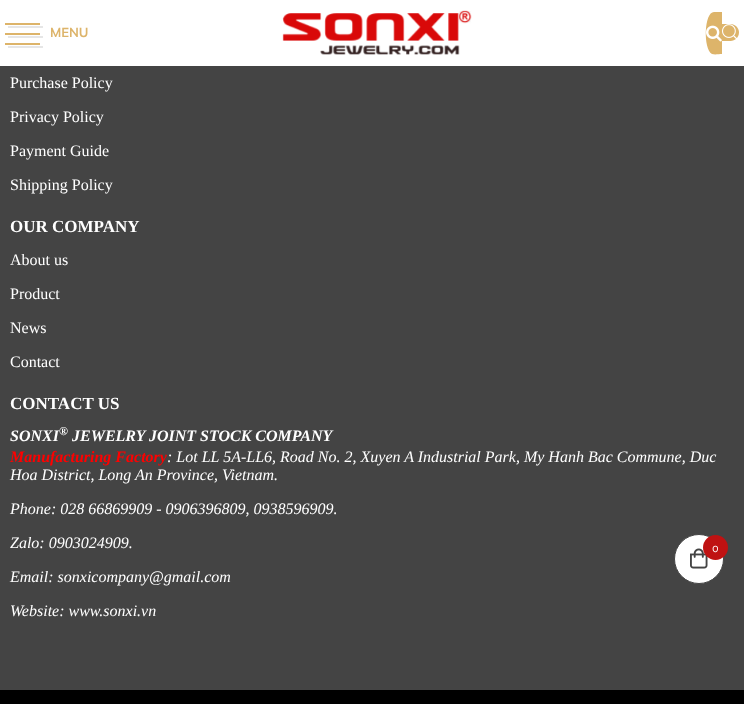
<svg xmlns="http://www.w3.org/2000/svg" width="744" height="704">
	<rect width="100%" height="100%" fill="#444444" />
	<rect x="0" y="0" width="744" height="66" fill="#FFFFFF" />
	<rect x="8" y="26" width="35" height="2" fill="#E6E6E6" />
	<rect x="5" y="23" width="35" height="2" fill="#DDB46A" />
	<rect x="8" y="36" width="35" height="2" fill="#E6E6E6" />
	<rect x="5" y="33" width="35" height="2" fill="#DDB46A" />
	<rect x="8" y="46" width="35" height="2" fill="#E6E6E6" />
	<rect x="5" y="43" width="35" height="2" fill="#DDB46A" />
	<text x="50" y="37" font-family="Mulish" font-size="13" font-weight="700" fill="#DDB46A">MENU</text>
	<image x="282" y="10" width="190" height="45" href="assets/img1.png" />
	<path d="M714 12H722V54C719 54 715 55 712 54C703 49 704 12 714 12Z" fill="#DDB46A" />
	<path d="M722 24H730.5C735 24 739 28 739 32.5C739 37 735 41 730.5 41H722Z" fill="#DDB46A" />
	<image x="706" y="25" width="16" height="17" href="assets/img2.png" />
	<image x="722" y="24" width="15" height="15" href="assets/img3.png" />
	<g font-family="Liberation Serif" font-size="16" fill="#FFFFFF">
		<text x="10" y="88">Purchase Policy</text>
		<text x="10" y="122">Privacy Policy</text>
		<text x="10" y="156">Payment Guide</text>
		<text x="10" y="190">Shipping Policy</text>
	</g>
	<text x="10" y="232" font-family="Liberation Serif" font-size="17" font-weight="700" fill="#FFFFFF">OUR COMPANY</text>
	<g font-family="Liberation Serif" font-size="16" fill="#FFFFFF">
		<text x="10" y="265">About us</text>
		<text x="10" y="299">Product</text>
		<text x="10" y="333">News</text>
		<text x="10" y="367">Contact</text>
	</g>
	<text x="10" y="409" font-family="Liberation Serif" font-size="17" font-weight="700" fill="#FFFFFF">CONTACT US</text>
	<text x="10" y="441" font-family="Liberation Serif" font-size="16" font-weight="700" font-style="italic" fill="#FFFFFF">SONXI</text>
	<text x="59" y="435" font-family="Liberation Serif" font-size="12" font-weight="700" font-style="italic" fill="#FFFFFF">®</text>
	<text x="72" y="441" font-family="Liberation Serif" font-size="16" font-weight="700" font-style="italic" fill="#FFFFFF">JEWELRY JOINT STOCK COMPANY</text>
	<text x="10" y="462" font-family="Liberation Serif" font-size="16" font-weight="700" font-style="italic" fill="#FF0000">Manufacturing Factory</text>
	<g font-family="Liberation Serif" font-size="16" font-style="italic" fill="#FFFFFF">
		<text x="167" y="462">: Lot LL 5A-LL6, Road No. 2, Xuyen A Industrial Park, My Hanh Bac Commune, Duc</text>
		<text x="10" y="480">Hoa District, Long An Province, Vietnam.</text>
		<text x="10" y="514">Phone: 028 66869909 - 0906396809, 0938596909.</text>
		<text x="10" y="548">Zalo: 0903024909.</text>
		<text x="10" y="582">Email: sonxicompany@gmail.com</text>
		<text x="10" y="616">Website: www.sonxi.vn</text>
	</g>
	<rect x="0" y="690" width="744" height="14" fill="#000000" />
	<circle cx="699" cy="559" r="24.5" fill="#FFFFFF" stroke="#444444" />
	<image x="690" y="548" width="18" height="21" href="assets/img4.png" />
	<circle cx="715.5" cy="547.5" r="12.5" fill="#BF1212" />
	<text x="712" y="552" font-family="Palanquin" font-size="11" fill="#FFFFFF">0</text>
</svg>
